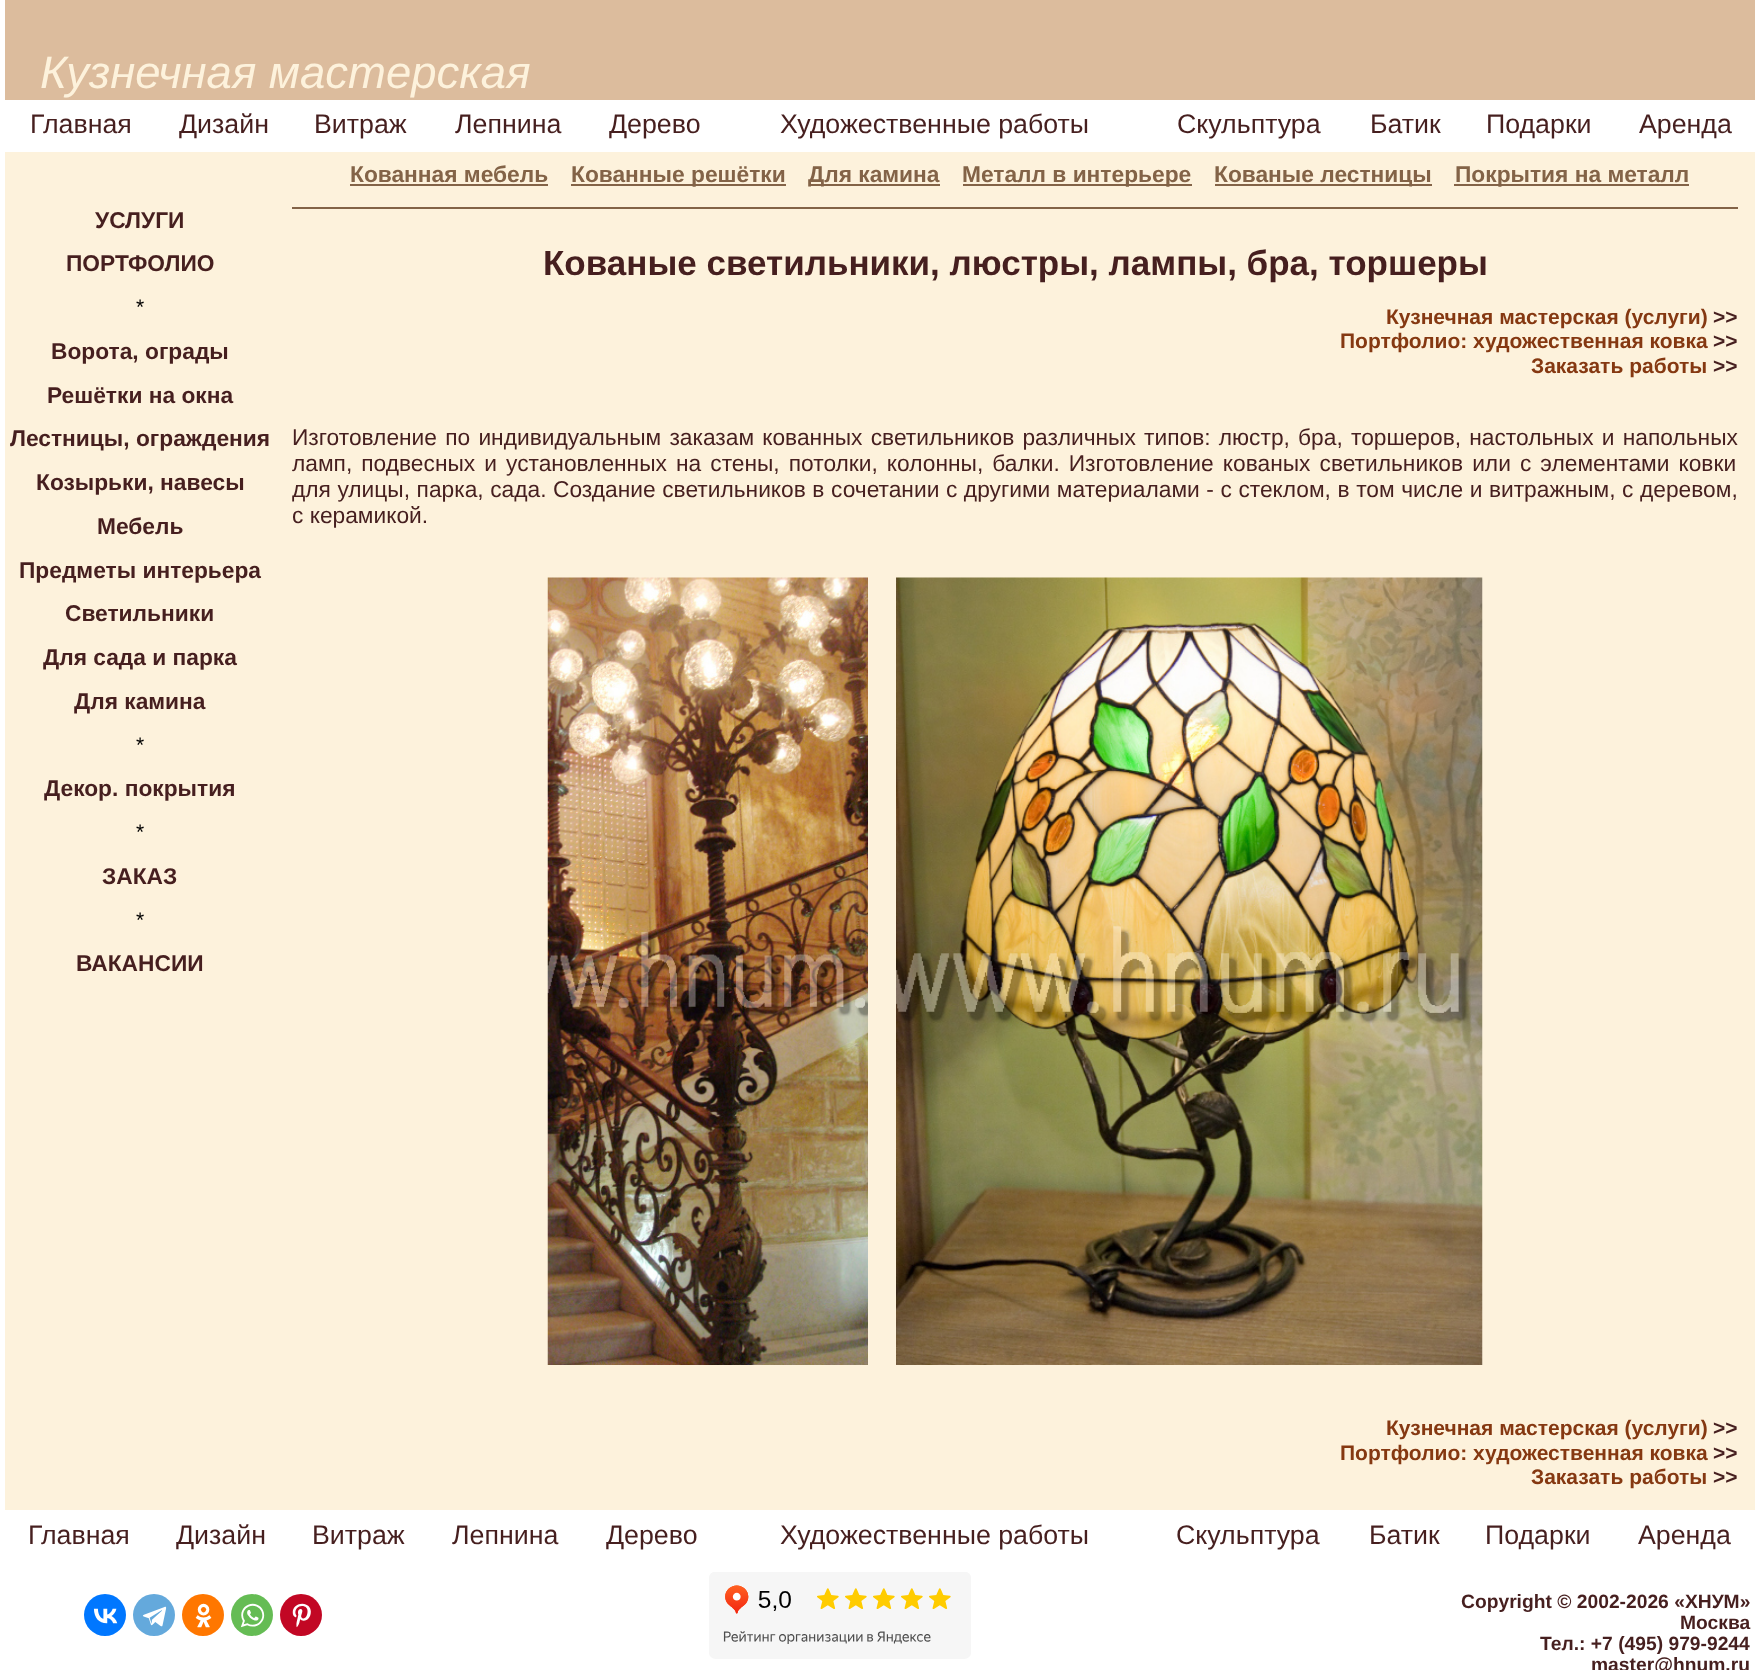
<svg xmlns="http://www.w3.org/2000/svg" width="1760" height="1670">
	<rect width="100%" height="100%" fill="#FFFFFF" />
	<rect x="5" y="0" width="1313" height="100" fill="#DCBC9D" />
	<rect x="1318" y="0" width="437" height="100" fill="#DCBC9D" />
	<text x="40" y="88" font-family="Liberation Sans" font-size="45.5" font-style="italic" fill="#FDF2DC">Кузнечная мастерская</text>
	<g font-family="Liberation Sans" font-size="26.75" fill="#461F1F">
		<text x="30" y="133">Главная</text>
		<text x="179" y="133">Дизайн</text>
		<text x="314" y="133">Витраж</text>
		<text x="455" y="133">Лепнина</text>
		<text x="609" y="133">Дерево</text>
		<text x="780" y="133">Художественные работы</text>
		<text x="1177" y="133">Скульптура</text>
		<text x="1370" y="133">Батик</text>
		<text x="1486" y="133">Подарки</text>
		<text x="1639" y="133">Аренда</text>
	</g>
	<rect x="5" y="152" width="1750" height="1358" fill="#FDF2DC" />
	<text x="350" y="182" font-family="Liberation Sans" font-size="22.75" font-weight="700" fill="#836347">Кованная мебель</text>
	<rect x="350" y="184" width="198" height="2" fill="#836347" />
	<rect x="571" y="184" width="215" height="2" fill="#836347" />
	<text x="571" y="182" font-family="Liberation Sans" font-size="22.75" font-weight="700" fill="#836347">Кованные решётки</text>
	<rect x="809" y="184" width="131" height="2" fill="#836347" />
	<text x="808" y="182" font-family="Liberation Sans" font-size="22.75" font-weight="700" fill="#836347">Для камина</text>
	<rect x="963" y="184" width="229" height="2" fill="#836347" />
	<text x="962" y="182" font-family="Liberation Sans" font-size="22.75" font-weight="700" fill="#836347">Металл в интерьере</text>
	<rect x="1215" y="184" width="217" height="2" fill="#836347" />
	<text x="1214" y="182" font-family="Liberation Sans" font-size="22.75" font-weight="700" fill="#836347">Кованые лестницы</text>
	<rect x="1454" y="184" width="235" height="2" fill="#836347" />
	<text x="1455" y="182" font-family="Liberation Sans" font-size="22.75" font-weight="700" fill="#836347">Покрытия на металл</text>
	<g font-family="Liberation Sans" font-size="22.75" font-weight="700" fill="#461F1F">
		<text x="95" y="228">УСЛУГИ</text>
		<text x="66" y="271">ПОРТФОЛИО</text>
	</g>
	<text x="136" y="314" font-family="Liberation Sans" font-size="21" fill="#000000">*</text>
	<g font-family="Liberation Sans" font-size="22.75" font-weight="700" fill="#461F1F">
		<text x="51" y="359">Ворота, ограды</text>
		<text x="47" y="403">Решётки на окна</text>
		<text x="10" y="446">Лестницы, ограждения</text>
		<text x="36" y="490">Козырьки, навесы</text>
		<text x="97" y="534">Мебель</text>
		<text x="19" y="578">Предметы интерьера</text>
		<text x="65" y="621">Светильники</text>
		<text x="43" y="665">Для сада и парка</text>
		<text x="74" y="709">Для камина</text>
	</g>
	<text x="136" y="752" font-family="Liberation Sans" font-size="21" fill="#000000">*</text>
	<text x="44" y="796" font-family="Liberation Sans" font-size="22.75" font-weight="700" fill="#461F1F">Декор. покрытия</text>
	<text x="136" y="839" font-family="Liberation Sans" font-size="21" fill="#000000">*</text>
	<text x="102" y="884" font-family="Liberation Sans" font-size="22.75" font-weight="700" fill="#461F1F">ЗАКАЗ</text>
	<text x="136" y="927" font-family="Liberation Sans" font-size="21" fill="#000000">*</text>
	<text x="76" y="971" font-family="Liberation Sans" font-size="22.75" font-weight="700" fill="#461F1F">ВАКАНСИИ</text>
	<rect x="292" y="207" width="1446" height="2" fill="#836347" />
	<text x="543" y="275" font-family="Liberation Sans" font-size="35" font-weight="700" fill="#461F1F">Кованые светильники, люстры, лампы, бра, торшеры</text>
	<text x="1386" y="324" font-family="Liberation Sans" font-size="21" font-weight="700" fill="#853811">Кузнечная мастерская (услуги)</text>
	<text x="1713" y="324" font-family="Liberation Sans" font-size="21" font-weight="700" fill="#461F1F">&gt;&gt;</text>
	<text x="1340" y="348" font-family="Liberation Sans" font-size="21" font-weight="700" fill="#853811">Портфолио: художественная ковка</text>
	<text x="1713" y="348" font-family="Liberation Sans" font-size="21" font-weight="700" fill="#461F1F">&gt;&gt;</text>
	<text x="1531" y="373" font-family="Liberation Sans" font-size="21" font-weight="700" fill="#853811">Заказать работы</text>
	<text x="1713" y="373" font-family="Liberation Sans" font-size="21" font-weight="700" fill="#461F1F">&gt;&gt;</text>
	<g font-family="Liberation Sans" font-size="22.75" fill="#461F1F">
		<text x="292" y="445" word-spacing="1.9">Изготовление по индивидуальным заказам кованных светильников различных типов: люстр, бра, торшеров, настольных и напольных</text>
		<text x="292" y="471" word-spacing="2.75">ламп, подвесных и установленных на стены, потолки, колонны, балки. Изготовление кованых светильников или с элементами ковки</text>
		<text x="292" y="497" word-spacing="0.25">для улицы, парка, сада. Создание светильников в сочетании с другими материалами - с стеклом, в том числе и витражным, с деревом,</text>
		<text x="292" y="523">с керамикой.</text>
	</g>
	<image x="547" y="577" width="321" height="788" href="assets/img1.png" />
	<image x="896" y="577" width="587" height="788" href="assets/img2.png" />
	<text x="1386" y="1435" font-family="Liberation Sans" font-size="21" font-weight="700" fill="#853811">Кузнечная мастерская (услуги)</text>
	<text x="1713" y="1435" font-family="Liberation Sans" font-size="21" font-weight="700" fill="#461F1F">&gt;&gt;</text>
	<text x="1340" y="1460" font-family="Liberation Sans" font-size="21" font-weight="700" fill="#853811">Портфолио: художественная ковка</text>
	<text x="1713" y="1460" font-family="Liberation Sans" font-size="21" font-weight="700" fill="#461F1F">&gt;&gt;</text>
	<text x="1531" y="1484" font-family="Liberation Sans" font-size="21" font-weight="700" fill="#853811">Заказать работы</text>
	<text x="1713" y="1484" font-family="Liberation Sans" font-size="21" font-weight="700" fill="#461F1F">&gt;&gt;</text>
	<g font-family="Liberation Sans" font-size="26.75" fill="#461F1F">
		<text x="28" y="1544">Главная</text>
		<text x="176" y="1544">Дизайн</text>
		<text x="312" y="1544">Витраж</text>
		<text x="452" y="1544">Лепнина</text>
		<text x="606" y="1544">Дерево</text>
		<text x="780" y="1544">Художественные работы</text>
		<text x="1176" y="1544">Скульптура</text>
		<text x="1369" y="1544">Батик</text>
		<text x="1485" y="1544">Подарки</text>
		<text x="1638" y="1544">Аренда</text>
	</g>
	<circle cx="105" cy="1615" r="21" fill="#0077FF" />
	<image x="93" y="1608" width="25" height="16" href="assets/img3.png" />
	<circle cx="154" cy="1615" r="21" fill="#64A9DC" />
	<image x="142" y="1606" width="25" height="21" href="assets/img4.png" />
	<circle cx="203" cy="1615" r="21" fill="#FF7700" />
	<image x="195" y="1603" width="17" height="25" href="assets/img5.png" />
	<circle cx="252" cy="1615" r="21" fill="#65BC54" />
	<image x="240" y="1603" width="25" height="25" href="assets/img6.png" />
	<circle cx="301" cy="1615" r="21" fill="#C20724" />
	<image x="292" y="1603" width="19" height="25" href="assets/img7.png" />
	<image x="709" y="1572" width="262" height="87" href="assets/img8.png" />
	<g font-family="Liberation Sans" font-size="19.25" font-weight="700" fill="#461F1F">
		<text x="1461" y="1608">Copyright © 2002-2026 «ХНУМ»</text>
		<text x="1680" y="1629">Москва</text>
		<text x="1540" y="1650">Тел.: +7 (495) 979-9244</text>
		<text x="1591" y="1671">master@hnum.ru</text>
	</g>
</svg>
